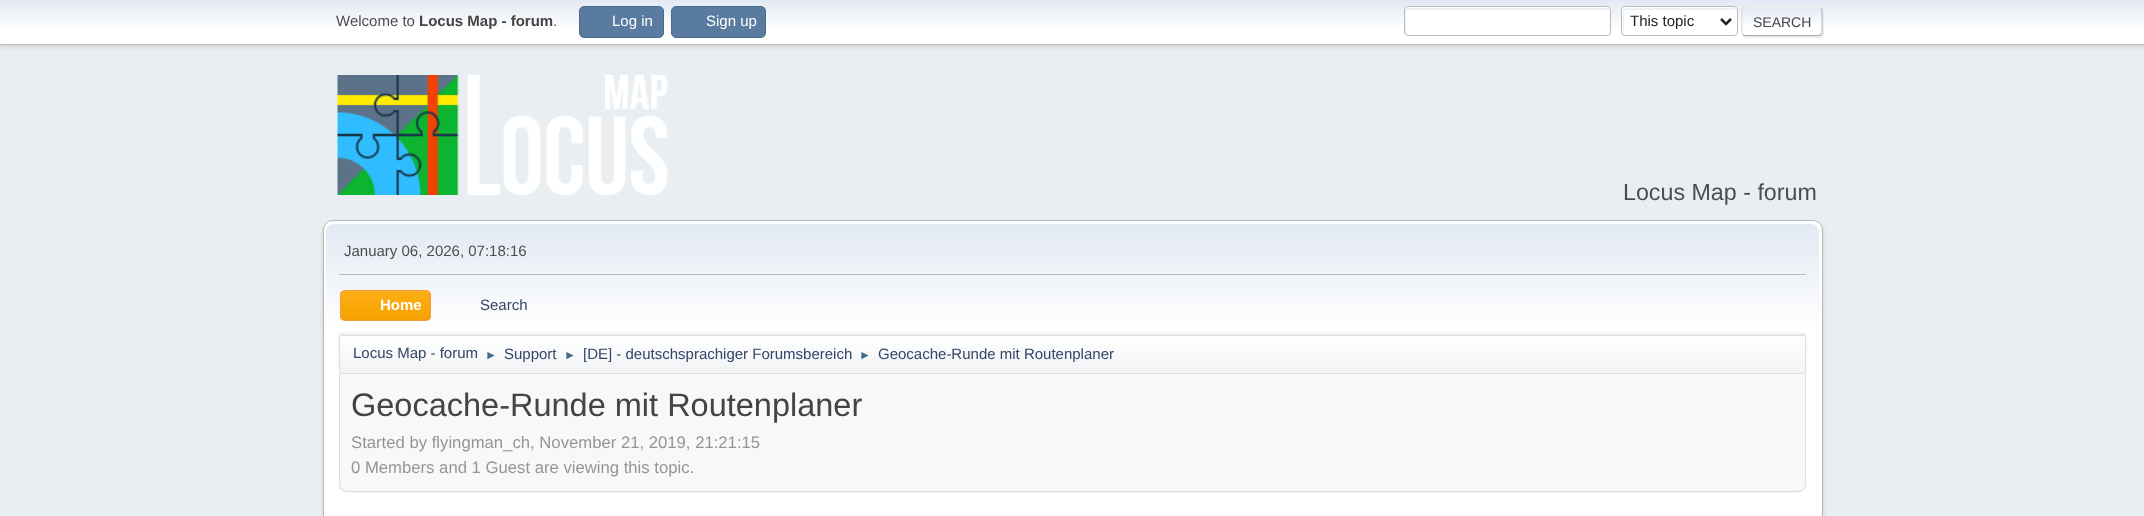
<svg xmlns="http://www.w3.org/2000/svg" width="2144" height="516">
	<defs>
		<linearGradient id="g1" gradientUnits="userSpaceOnUse" x1="1073" y1="0" x2="1073" y2="44"><stop offset="0" stop-color="#E2E9F3" /><stop offset="0.7" stop-color="#FFFFFF" /></linearGradient>
		<clipPath id="clip1"><rect x="1741" y="6" width="82" height="30" rx="4" /></clipPath>
		<linearGradient id="g2" gradientUnits="userSpaceOnUse" x1="1782" y1="-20" x2="1782" y2="7.5"><stop offset="0" stop-color="#E2E9F3" /><stop offset="0.7" stop-color="#FFFFFF" /></linearGradient>
		<linearGradient id="g3" gradientUnits="userSpaceOnUse" x1="1782" y1="7.5" x2="1782" y2="35"><stop offset="0" stop-color="#E2E9F3" /><stop offset="0.7" stop-color="#FFFFFF" /></linearGradient>
		<linearGradient id="g4" gradientUnits="userSpaceOnUse" x1="1782" y1="35" x2="1782" y2="63"><stop offset="0" stop-color="#E2E9F3" /><stop offset="0.7" stop-color="#FFFFFF" /></linearGradient>
		<linearGradient id="g5" gradientUnits="userSpaceOnUse" x1="1073" y1="224" x2="1073" y2="376"><stop offset="0" stop-color="#E2E9F3" /><stop offset="0.7" stop-color="#FFFFFF" /></linearGradient>
		<clipPath id="clip2"><rect x="340" y="290" width="91" height="31" rx="5" /></clipPath>
		<linearGradient id="g6" gradientUnits="userSpaceOnUse" x1="386" y1="291" x2="386" y2="320"><stop offset="0" stop-color="#FFAE14" /><stop offset="1" stop-color="#F5A100" /></linearGradient>
		<clipPath id="clip3"><rect x="339" y="335" width="1467" height="39" rx="2.5" /></clipPath>
		<linearGradient id="g7" gradientUnits="userSpaceOnUse" x1="1073" y1="336" x2="1073" y2="373"><stop offset="0" stop-color="#FFFFFF" /><stop offset="0.95" stop-color="#F1F3F5" /></linearGradient>
	</defs>
	<rect width="100%" height="100%" fill="#E9EEF2" />
	<rect x="0" y="1" width="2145" height="45" fill="#000000" fill-opacity="0.16" filter="blur(2.5px)" />
	<rect x="0" y="0" width="2144" height="44" fill="url(#g1)" />
	<rect x="0" y="44" width="2144" height="1" fill="#BBBBBB" />
	<text x="336" y="26" font-family="Liberation Sans" font-size="15" fill="#4D4D4D">Welcome to</text>
	<text x="419" y="26" font-family="Liberation Sans" font-size="15" font-weight="700" fill="#444444">Locus Map - forum</text>
	<text x="553" y="26" font-family="Liberation Sans" font-size="15" fill="#4D4D4D">.</text>
	<rect x="579.5" y="6.5" width="84" height="31" rx="4.5" fill="#597B9F" stroke="#4A6B8C" />
	<text x="612" y="26" font-family="Liberation Sans" font-size="15" fill="#FFFFFF">Log in</text>
	<rect x="671.5" y="6.5" width="94" height="31" rx="4.5" fill="#597B9F" stroke="#4A6B8C" />
	<text x="706" y="26" font-family="Liberation Sans" font-size="15" fill="#FFFFFF">Sign up</text>
	<rect x="1404" y="6" width="207" height="30" rx="4" fill="#FFFFFF" />
	<path d="M1409 10H1610C1610 9 1609 8 1608 8H1408C1406 8 1405 9 1405 10V32C1405 33 1405 34 1406 35V12C1406 11 1407 10 1409 10Z" fill="#ECF1F8" />
	<rect x="1404.5" y="6.5" width="206" height="29" rx="3.5" fill="none" stroke="#BBBBBB" />
	<rect x="1621" y="6" width="117" height="30" rx="4" fill="#FFFFFF" />
	<path d="M1626 10H1736C1736 9 1735 8 1734 8H1626C1624 8 1623 9 1623 10V32C1623 33 1623 34 1624 35V12C1624 11 1625 10 1626 10Z" fill="#ECF1F8" />
	<rect x="1621.5" y="6.5" width="116" height="29" rx="3.5" fill="none" stroke="#BBBBBB" />
	<path d="M1721 19L1726 24L1731 19" fill="none" stroke="#222222" stroke-width="2.5" />
	<text x="1630" y="26" font-family="Liberation Sans" font-size="15" fill="#222222">This topic</text>
	<rect x="1743" y="8" width="81" height="30" rx="4" fill="#DDDDDD" fill-opacity="0.57" filter="blur(0.5px)" />
	<g clip-path="url(#clip1)">
		<rect x="1741" y="6" width="82" height="2" fill="url(#g2)" />
		<rect x="1741" y="8" width="82" height="27" fill="url(#g3)" />
		<rect x="1741" y="35" width="82" height="1" fill="url(#g4)" />
	</g>
	<path d="M1821 8C1821.5 8.5 1822 9 1822 10V32.5C1822 33.5 1821.5 34 1821 34.5" fill="none" stroke="#BBBBBB" stroke-width="1.2" />
	<path d="M1821 34.5L1819 35.5H1744.5L1743 34.5" fill="none" stroke="#AAAAAA" stroke-width="1.2" />
	<path d="M1743 34.5C1740.5 32.5 1742 24 1742 21C1742 4 1739.5 7 1757.5 7H1819L1821 8" fill="none" stroke="#DDDDDD" stroke-width="1.2" />
	<text x="1753" y="27" font-family="Liberation Sans" font-size="14" fill="#444444">SEARCH</text>
	<image x="337" y="75" width="331" height="120" href="assets/img1.png" />
	<text x="1623" y="200" font-family="Liberation Sans" font-size="23.25" fill="#4D4D4D">Locus Map - forum</text>
	<rect x="323" y="223" width="1500" height="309" rx="10" fill="#000000" fill-opacity="0.14" filter="blur(2px)" />
	<rect x="323.5" y="220.5" width="1499" height="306" rx="9.5" fill="#FFFFFF" stroke="#B8B8B8" />
	<path d="M334 224H1811C1815.5 224 1819 227.5 1819 232V376H326V232C326 227.5 329.5 224 334 224Z" fill="url(#g5)" />
	<rect x="339" y="274" width="1467" height="1" fill="#BBBBBB" />
	<text x="344" y="256" font-family="Liberation Sans" font-size="15" fill="#4D4D4D">January 06, 2026, 07:18:16</text>
	<g clip-path="url(#clip2)">
		<rect x="340" y="291" width="91" height="29" fill="url(#g6)" />
	</g>
	<rect x="340.5" y="290.5" width="90" height="30" rx="4.5" fill="none" stroke="#F49A3A" />
	<text x="380" y="310" font-family="Liberation Sans" font-size="15" font-weight="700" fill="#FFFFFF">Home</text>
	<text x="480" y="310" font-family="Liberation Sans" font-size="15" fill="#334466">Search</text>
	<rect x="339" y="333" width="1467" height="38" rx="2.5" fill="#000000" fill-opacity="0.08" filter="blur(1px)" />
	<g clip-path="url(#clip3)">
		<rect x="339" y="336" width="1467" height="37" fill="url(#g7)" />
	</g>
	<rect x="339.5" y="335.5" width="1466" height="38" rx="2" fill="none" stroke="#DDDDDD" />
	<text x="353" y="358" font-family="Liberation Sans" font-size="15" fill="#334466">Locus Map - forum</text>
	<text x="485" y="359" font-family="Liberation Sans" font-size="12" fill="#3F6B8C">►</text>
	<text x="504" y="359" font-family="Liberation Sans" font-size="15" fill="#334466">Support</text>
	<text x="564" y="359" font-family="Liberation Sans" font-size="12" fill="#3F6B8C">►</text>
	<text x="583" y="359" font-family="Liberation Sans" font-size="15" fill="#334466">[DE] - deutschsprachiger Forumsbereich</text>
	<text x="859" y="359" font-family="Liberation Sans" font-size="12" fill="#3F6B8C">►</text>
	<text x="878" y="359" font-family="Liberation Sans" font-size="15" fill="#334466">Geocache-Runde mit Routenplaner</text>
	<path d="M339 374H1806V484C1806 489 1802 493 1797 493H348C343 493 339 489 339 484Z" fill="#F8F8F8" />
	<path d="M339 374H1806V484C1806 489 1802 492 1798 492H348C343 492 339 489 339 484ZM340 374H1805V484C1805 488 1802 491 1798 491H348C343 491 340 488 340 484Z" fill="#DDDDDD" fill-rule="evenodd" />
	<text x="351" y="416" font-family="Liberation Sans" font-size="32.5" fill="#444444">Geocache-Runde mit Routenplaner</text>
	<g font-family="Liberation Sans" font-size="16.7" fill="#959595">
		<text x="351" y="448">Started by flyingman_ch, November 21, 2019, 21:21:15</text>
		<text x="351" y="473">0 Members and 1 Guest are viewing this topic.</text>
	</g>
</svg>
